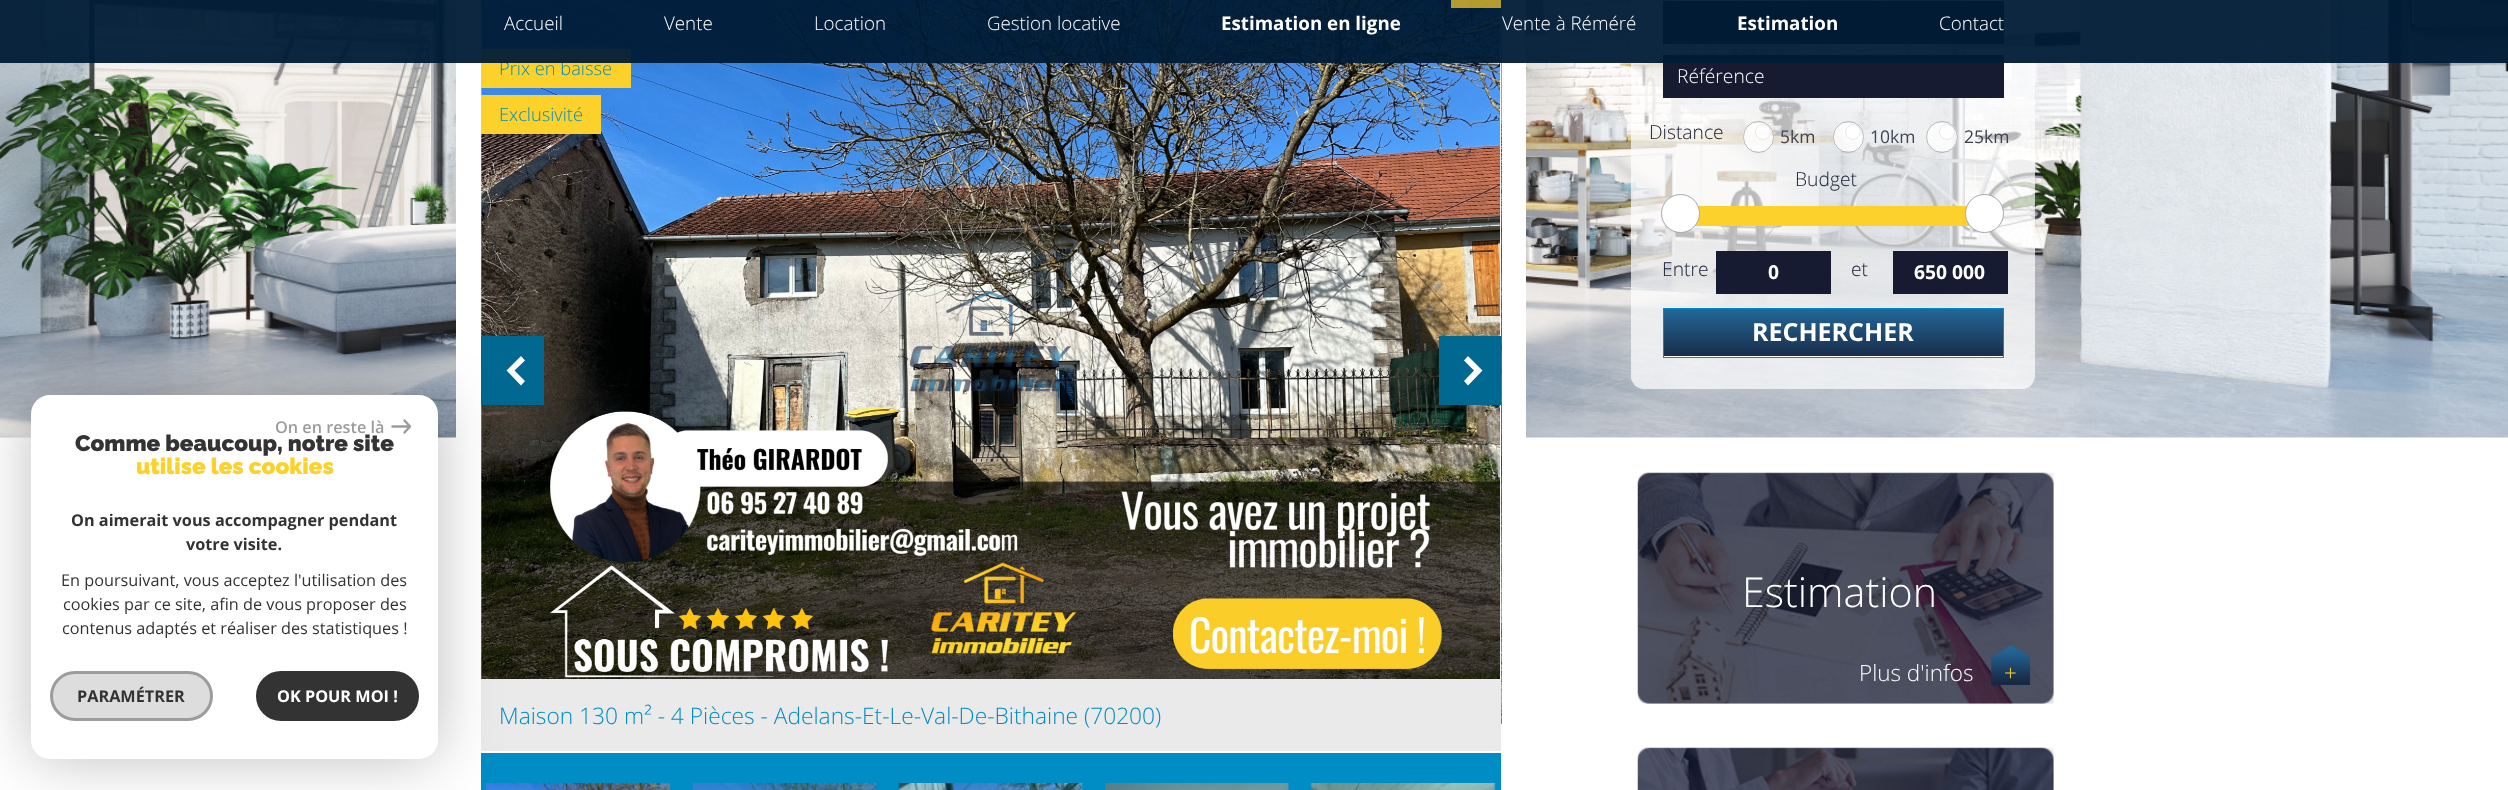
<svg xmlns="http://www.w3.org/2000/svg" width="2508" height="790">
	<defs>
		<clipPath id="clip1"><rect x="1743" y="121" width="31" height="32" rx="15.5" /></clipPath>
		<clipPath id="clip2"><rect x="1833" y="121" width="31" height="32" rx="15.5" /></clipPath>
		<clipPath id="clip3"><rect x="1926" y="121" width="32" height="32" rx="16" /></clipPath>
		<linearGradient id="g1" gradientUnits="userSpaceOnUse" x1="1833" y1="309" x2="1833" y2="356"><stop offset="0" stop-color="#236899" /><stop offset="1" stop-color="#192D4A" /></linearGradient>
	</defs>
	<rect width="100%" height="100%" fill="#FFFFFF" />
	<image x="0" y="0" width="2508" height="438" href="assets/img1.png" />
	<rect x="456" y="0" width="1070" height="438" fill="#FFFFFF" />
	<image x="481" y="0" width="1020" height="679" href="assets/img2.png" />
	<image x="1501" y="0" width="1" height="724" href="assets/img3.png" />
	<rect x="481" y="49" width="150" height="39" fill="#FDD12B" />
	<text x="499" y="75" font-family="Open Sans" font-size="18.25" font-weight="300" fill="#008CC4">Prix en baisse</text>
	<rect x="1631" y="-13" width="404" height="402" rx="13" fill="#FFFFFF" fill-opacity="0.7" />
	<rect x="1663" y="1" width="341" height="43" fill="#161B31" />
	<path d="M1971 20H1981L1976 25Z" fill="#FDD12B" />
	<rect x="1663" y="55" width="341" height="43" fill="#161B31" />
	<rect x="0" y="0" width="2508" height="63" fill="#001B36" fill-opacity="0.95" />
	<g font-family="Open Sans" font-size="18.75" font-weight="300" fill="#FFFFFF">
		<text x="504" y="30">Accueil</text>
		<text x="664" y="30">Vente</text>
		<text x="814" y="30">Location</text>
		<text x="987" y="30">Gestion locative</text>
	</g>
	<text x="1221" y="30" font-family="Open Sans" font-size="18.75" font-weight="700" fill="#FFFFFF">Estimation en ligne</text>
	<text x="1502" y="30" font-family="Open Sans" font-size="18.75" font-weight="300" fill="#FFFFFF">Vente à Réméré</text>
	<text x="1737" y="30" font-family="Open Sans" font-size="18.75" font-weight="700" fill="#FFFFFF">Estimation</text>
	<text x="1939" y="30" font-family="Open Sans" font-size="18.75" font-weight="300" fill="#FFFFFF">Contact</text>
	<rect x="481" y="336" width="63" height="69" fill="#006891" />
	<path d="M521 356L506.5 370.5L521 385.5L525 381L514.5 370.5L525 360.5Z" fill="#FFFFFF" />
	<rect x="481" y="753" width="1020" height="37" fill="#008CC4" />
	<image x="486" y="783" width="185" height="7" href="assets/img4.png" />
	<rect x="481" y="679" width="1020" height="72" fill="#EAEAEA" />
	<rect x="31" y="395" width="407" height="364" rx="19" fill="#000000" fill-opacity="0.25" filter="blur(31px)" />
	<rect x="31" y="395" width="407" height="364" rx="19" fill="#FFFFFF" />
	<text x="275" y="433" font-family="Open Sans" font-size="16.25" font-weight="600" fill="#9C9C9C">On en reste là</text>
	<path d="M392.5 426.5H410M404.5 420.5L410 426.5M404.5 432.5L410 426.5" fill="none" stroke="#9C9C9C" stroke-width="2.5" stroke-linecap="round" />
	<text x="75" y="451" font-family="Raleway" font-size="22.5" font-weight="100" fill="#333333">Comme beaucoup, notre site</text>
	<text x="136" y="474" font-family="Raleway" font-size="22.5" font-weight="100" fill="#FDD12B">utilise les cookies</text>
	<g font-family="Open Sans" font-size="16.25" font-weight="700" fill="#333333">
		<text x="71" y="526">On aimerait vous accompagner pendant</text>
		<text x="186" y="550">votre visite.</text>
	</g>
	<g font-family="Open Sans" font-size="16.25" fill="#333333">
		<text x="61" y="586">En poursuivant, vous acceptez l'utilisation des</text>
		<text x="63" y="610">cookies par ce site, afin de vous proposer des</text>
		<text x="62" y="634">contenus adaptés et réaliser des statistiques !</text>
	</g>
	<rect x="51.5" y="672.5" width="160" height="47" rx="23.5" fill="#DDDDDD" stroke="#9C9C9C" stroke-width="3" />
	<text x="77" y="702" font-family="Open Sans" font-size="16.25" font-weight="700" fill="#333333">PARAMÉTRER</text>
	<rect x="257.5" y="672.5" width="160" height="47" rx="23.5" fill="#333333" stroke="#333333" stroke-width="3" />
	<text x="277" y="702" font-family="Open Sans" font-size="16.25" font-weight="700" fill="#FFFFFF">OK POUR MOI !</text>
	<rect x="1439" y="336" width="62" height="69" fill="#006891" />
	<path d="M1468 385.5L1482.5 370.5L1468 356L1464 360.5L1474 370.5L1464 381Z" fill="#FFFFFF" />
	<image x="692" y="783" width="185" height="7" href="assets/img5.png" />
	<image x="898" y="783" width="185" height="7" href="assets/img6.png" />
	<image x="1105" y="783" width="185" height="7" href="assets/img7.png" />
	<image x="1311" y="783" width="185" height="7" href="assets/img8.png" />
	<rect x="1451" y="0" width="50" height="8" fill="#FDD12B" fill-opacity="0.7" />
	<rect x="481" y="95" width="120" height="39" fill="#FDD12B" />
	<text x="499" y="121" font-family="Open Sans" font-size="18.25" font-weight="300" fill="#008CC4">Exclusivité</text>
	<text x="499" y="724" font-family="Open Sans" font-size="22.75" font-weight="300" fill="#008CC4">Maison 130 m² - 4 Pièces - Adelans-Et-Le-Val-De-Bithaine (70200)</text>
	<image x="1637" y="472" width="417" height="232" href="assets/img9.png" />
	<text x="1742" y="607" font-family="Open Sans" font-size="41.25" font-weight="300" fill="#FFFFFF">Estimation</text>
	<text x="1859" y="681" font-family="Open Sans" font-size="22.5" font-weight="300" fill="#FFFFFF">Plus d'infos</text>
	<image x="1991" y="645" width="39" height="40" href="assets/img10.png" />
	<text x="2004" y="681" font-family="Open Sans" font-size="22.5" font-weight="300" fill="#FDD12B">+</text>
	<image x="1637" y="747" width="417" height="43" href="assets/img11.png" />
	<text x="1677" y="83" font-family="Open Sans" font-size="19.25" font-weight="300" fill="#FFFFFF">Référence</text>
	<text x="1649" y="139" font-family="Open Sans" font-size="19.25" font-weight="300" fill="#161B31">Distance</text>
	<circle cx="1763" cy="132" r="8" fill="#FFFFFF" fill-opacity="0.8" />
	<circle cx="1763" cy="132" r="7.5" fill="none" stroke="#767676" stroke-opacity="0.8" />
	<g clip-path="url(#clip1)">
		<rect x="1743" y="123" width="31" height="28" fill="#FFFFFF" fill-opacity="0.8" />
	</g>
	<rect x="1743.5" y="121.5" width="30" height="31" rx="15" fill="none" stroke="#A9A9A9" stroke-opacity="0.8" />
	<text x="1780" y="143" font-family="Open Sans" font-size="17.5" fill="#3E4151">5km</text>
	<circle cx="1853" cy="132" r="8" fill="#FFFFFF" fill-opacity="0.8" />
	<circle cx="1853" cy="132" r="7.5" fill="none" stroke="#767676" stroke-opacity="0.8" />
	<g clip-path="url(#clip2)">
		<rect x="1833" y="123" width="31" height="28" fill="#FFFFFF" fill-opacity="0.8" />
	</g>
	<rect x="1833.5" y="121.5" width="30" height="31" rx="15" fill="none" stroke="#A9A9A9" stroke-opacity="0.8" />
	<text x="1870" y="143" font-family="Open Sans" font-size="17.5" fill="#414557">10km</text>
	<circle cx="1947" cy="132" r="8" fill="#FFFFFF" fill-opacity="0.8" />
	<circle cx="1947" cy="132" r="7.5" fill="none" stroke="#767676" stroke-opacity="0.8" />
	<g clip-path="url(#clip3)">
		<rect x="1926" y="123" width="32" height="28" fill="#FFFFFF" fill-opacity="0.8" />
	</g>
	<circle cx="1942" cy="137" r="15.5" fill="none" stroke="#A9A9A9" stroke-opacity="0.8" />
	<text x="1964" y="143" font-family="Open Sans" font-size="17.5" fill="#3E4151">25km</text>
	<text x="1795" y="186" font-family="Open Sans" font-size="19.25" font-weight="300" fill="#161B31">Budget</text>
	<rect x="1695" y="206" width="275" height="20" fill="#FDD12B" />
	<circle cx="1680.5" cy="213.5" r="19" fill="#FFFFFF" stroke="#A9A9A9" />
	<circle cx="1984.5" cy="213.5" r="19" fill="#FFFFFF" stroke="#A9A9A9" />
	<text x="1662" y="276" font-family="Open Sans" font-size="19.25" font-weight="300" fill="#161B31">Entre</text>
	<rect x="1716" y="251" width="115" height="43" fill="#161B31" />
	<text x="1768" y="279" font-family="Open Sans" font-size="19.25" font-weight="700" fill="#FFFFFF">0</text>
	<text x="1851" y="276" font-family="Open Sans" font-size="19.25" font-weight="300" fill="#161B31">et</text>
	<rect x="1893" y="251" width="115" height="43" fill="#161B31" />
	<text x="1914" y="279" font-family="Open Sans" font-size="19.25" font-weight="700" fill="#FFFFFF">650 000</text>
	<rect x="1664" y="356" width="339" height="1" fill="#FFFFFF" />
	<rect x="1664" y="309" width="339" height="47" fill="url(#g1)" />
	<rect x="1663.5" y="308.5" width="340" height="49" fill="none" stroke="#008CC4" />
	<text x="1752" y="341" font-family="Open Sans" font-size="25" font-weight="700" fill="#FFFFFF">RECHERCHER</text>
</svg>
